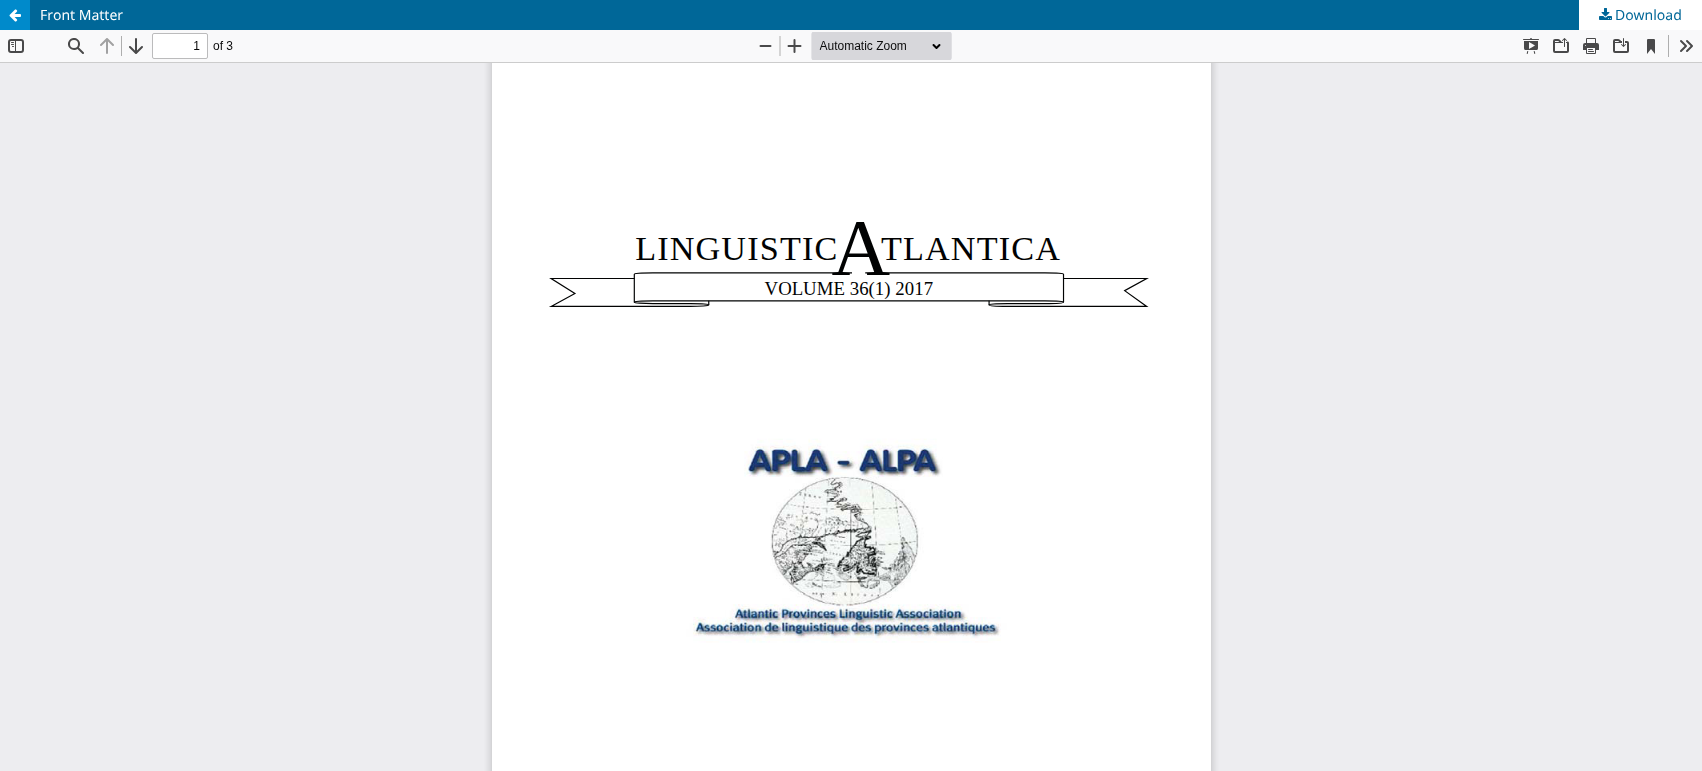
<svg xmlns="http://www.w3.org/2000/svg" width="1702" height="771">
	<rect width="100%" height="100%" fill="#FFFFFF" />
	<rect x="30" y="0" width="1549" height="30" fill="#006798" />
	<rect x="0" y="0" width="30" height="30" fill="#008ACB" />
	<image x="9" y="9" width="12" height="13" href="assets/img1.png" />
	<text x="40" y="20" font-family="Noto Sans" font-size="14" fill="#FFFFFF">Front Matter</text>
	<image x="1599" y="8" width="13" height="12" href="assets/img2.png" />
	<text x="1615" y="20" font-family="Noto Sans" font-size="14" fill="#006798">Download</text>
	<image x="0" y="30" width="1702" height="741" href="assets/img3.png" />
</svg>
